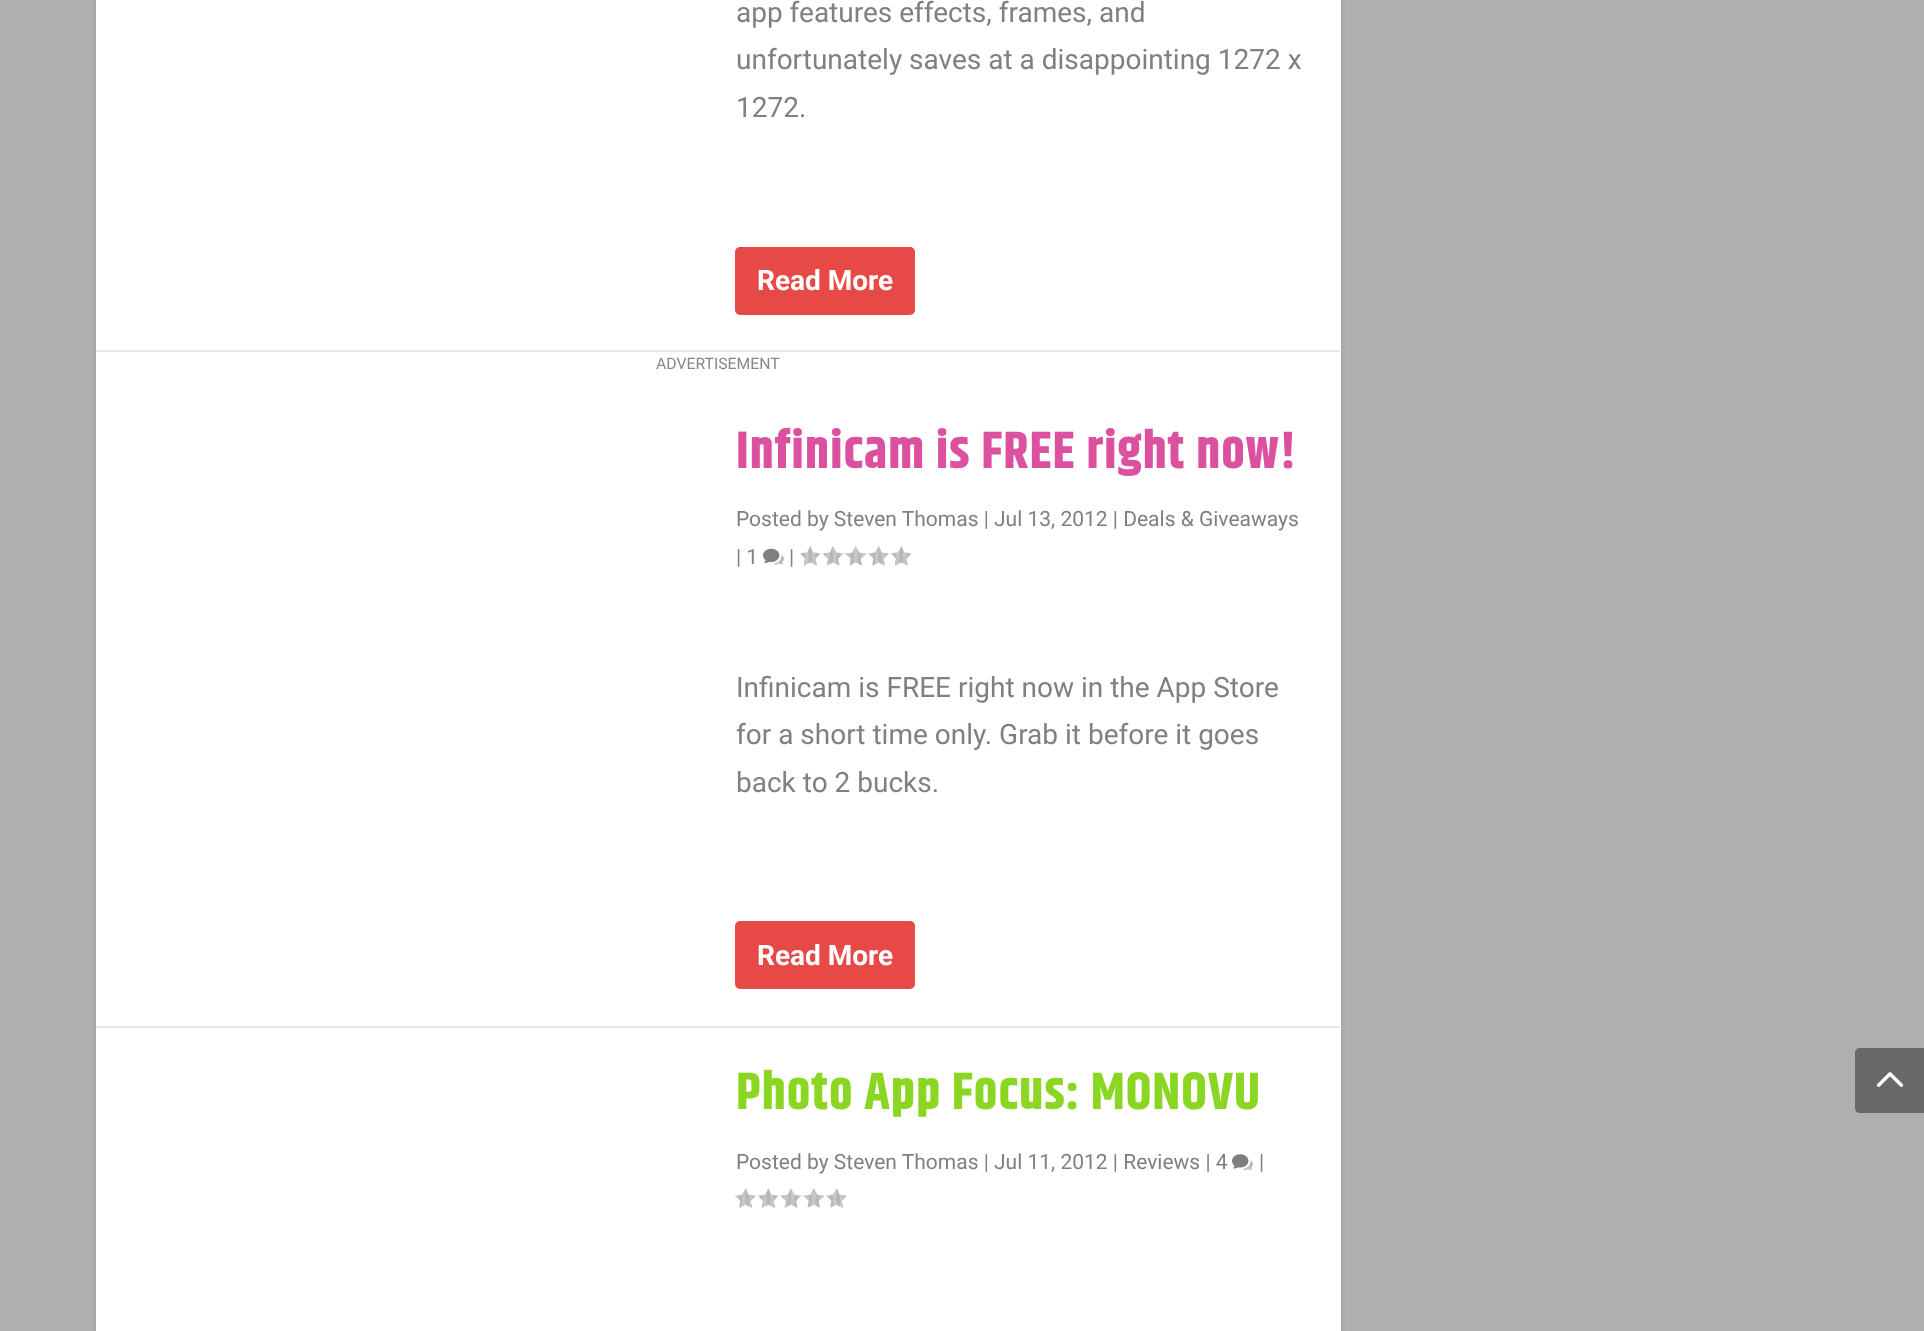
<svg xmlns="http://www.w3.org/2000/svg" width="1924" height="1331">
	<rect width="100%" height="100%" fill="#AFAFAF" />
	<rect x="96" y="-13" width="1245" height="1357" rx="5" fill="#000000" fill-opacity="0.1" filter="blur(2.5px)" />
	<rect x="96" y="0" width="1245" height="1331" fill="#FFFFFF" />
	<rect x="96" y="350" width="1244" height="2" fill="#E6E6E6" />
	<g font-family="Roboto" font-size="28" fill="#808080">
		<text x="736" y="22">app features effects, frames, and</text>
		<text x="736" y="69">unfortunately saves at a disappointing 1272 x</text>
		<text x="736" y="117">1272.</text>
	</g>
	<rect x="735" y="247" width="180" height="68" rx="5" fill="#E64946" />
	<text x="757" y="290" font-family="Roboto" font-size="28" font-weight="700" fill="#FFFFFF">Read More</text>
	<text x="656" y="369" font-family="Roboto" font-size="15.75" fill="#888888">ADVERTISEMENT</text>
	<rect x="96" y="1026" width="1244" height="2" fill="#E6E6E6" />
	<text x="736" y="468" font-family="Khand" font-size="52.5" font-weight="700" letter-spacing="0.9" fill="#DB509F">Infinicam is FREE right now!</text>
	<g font-family="Roboto" font-size="21" fill="#808080">
		<text x="736" y="526">Posted by Steven Thomas | Jul 13, 2012 | Deals &amp; Giveaways</text>
		<text x="736" y="564">| 1</text>
	</g>
	<image x="763" y="548" width="21" height="17" href="assets/img1.png" />
	<text x="789" y="564" font-family="Roboto" font-size="21" fill="#808080">|</text>
	<image x="800" y="546" width="21" height="20" href="assets/img2.png" />
	<image x="822" y="546" width="22" height="20" href="assets/img3.png" />
	<image x="845" y="546" width="21" height="20" href="assets/img4.png" />
	<image x="868" y="546" width="21" height="20" href="assets/img5.png" />
	<image x="891" y="546" width="21" height="20" href="assets/img2.png" />
	<g font-family="Roboto" font-size="28" fill="#808080">
		<text x="736" y="697">Infinicam is FREE right now in the App Store</text>
		<text x="736" y="744">for a short time only. Grab it before it goes</text>
		<text x="736" y="792">back to 2 bucks.</text>
	</g>
	<rect x="735" y="921" width="180" height="68" rx="5" fill="#E64946" />
	<text x="757" y="965" font-family="Roboto" font-size="28" font-weight="700" fill="#FFFFFF">Read More</text>
	<text x="736" y="1109" font-family="Khand" font-size="52.5" font-weight="700" letter-spacing="0.9" fill="#8BD623">Photo App Focus: MONOVU</text>
	<text x="736" y="1169" font-family="Roboto" font-size="21" fill="#808080">Posted by Steven Thomas | Jul 11, 2012 | Reviews | 4</text>
	<image x="1232" y="1154" width="21" height="16" href="assets/img6.png" />
	<text x="1259" y="1169" font-family="Roboto" font-size="21" fill="#808080">|</text>
	<image x="735" y="1188" width="21" height="20" href="assets/img7.png" />
	<image x="758" y="1188" width="21" height="20" href="assets/img8.png" />
	<image x="780" y="1188" width="22" height="20" href="assets/img9.png" />
	<image x="803" y="1188" width="21" height="20" href="assets/img10.png" />
	<image x="826" y="1188" width="21" height="20" href="assets/img7.png" />
	<path d="M1860 1048H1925V1113H1860C1857 1113 1855 1111 1855 1108V1053C1855 1050 1857 1048 1860 1048Z" fill="#696969" />
	<image x="1876" y="1072" width="28" height="15" href="assets/img11.png" />
</svg>
